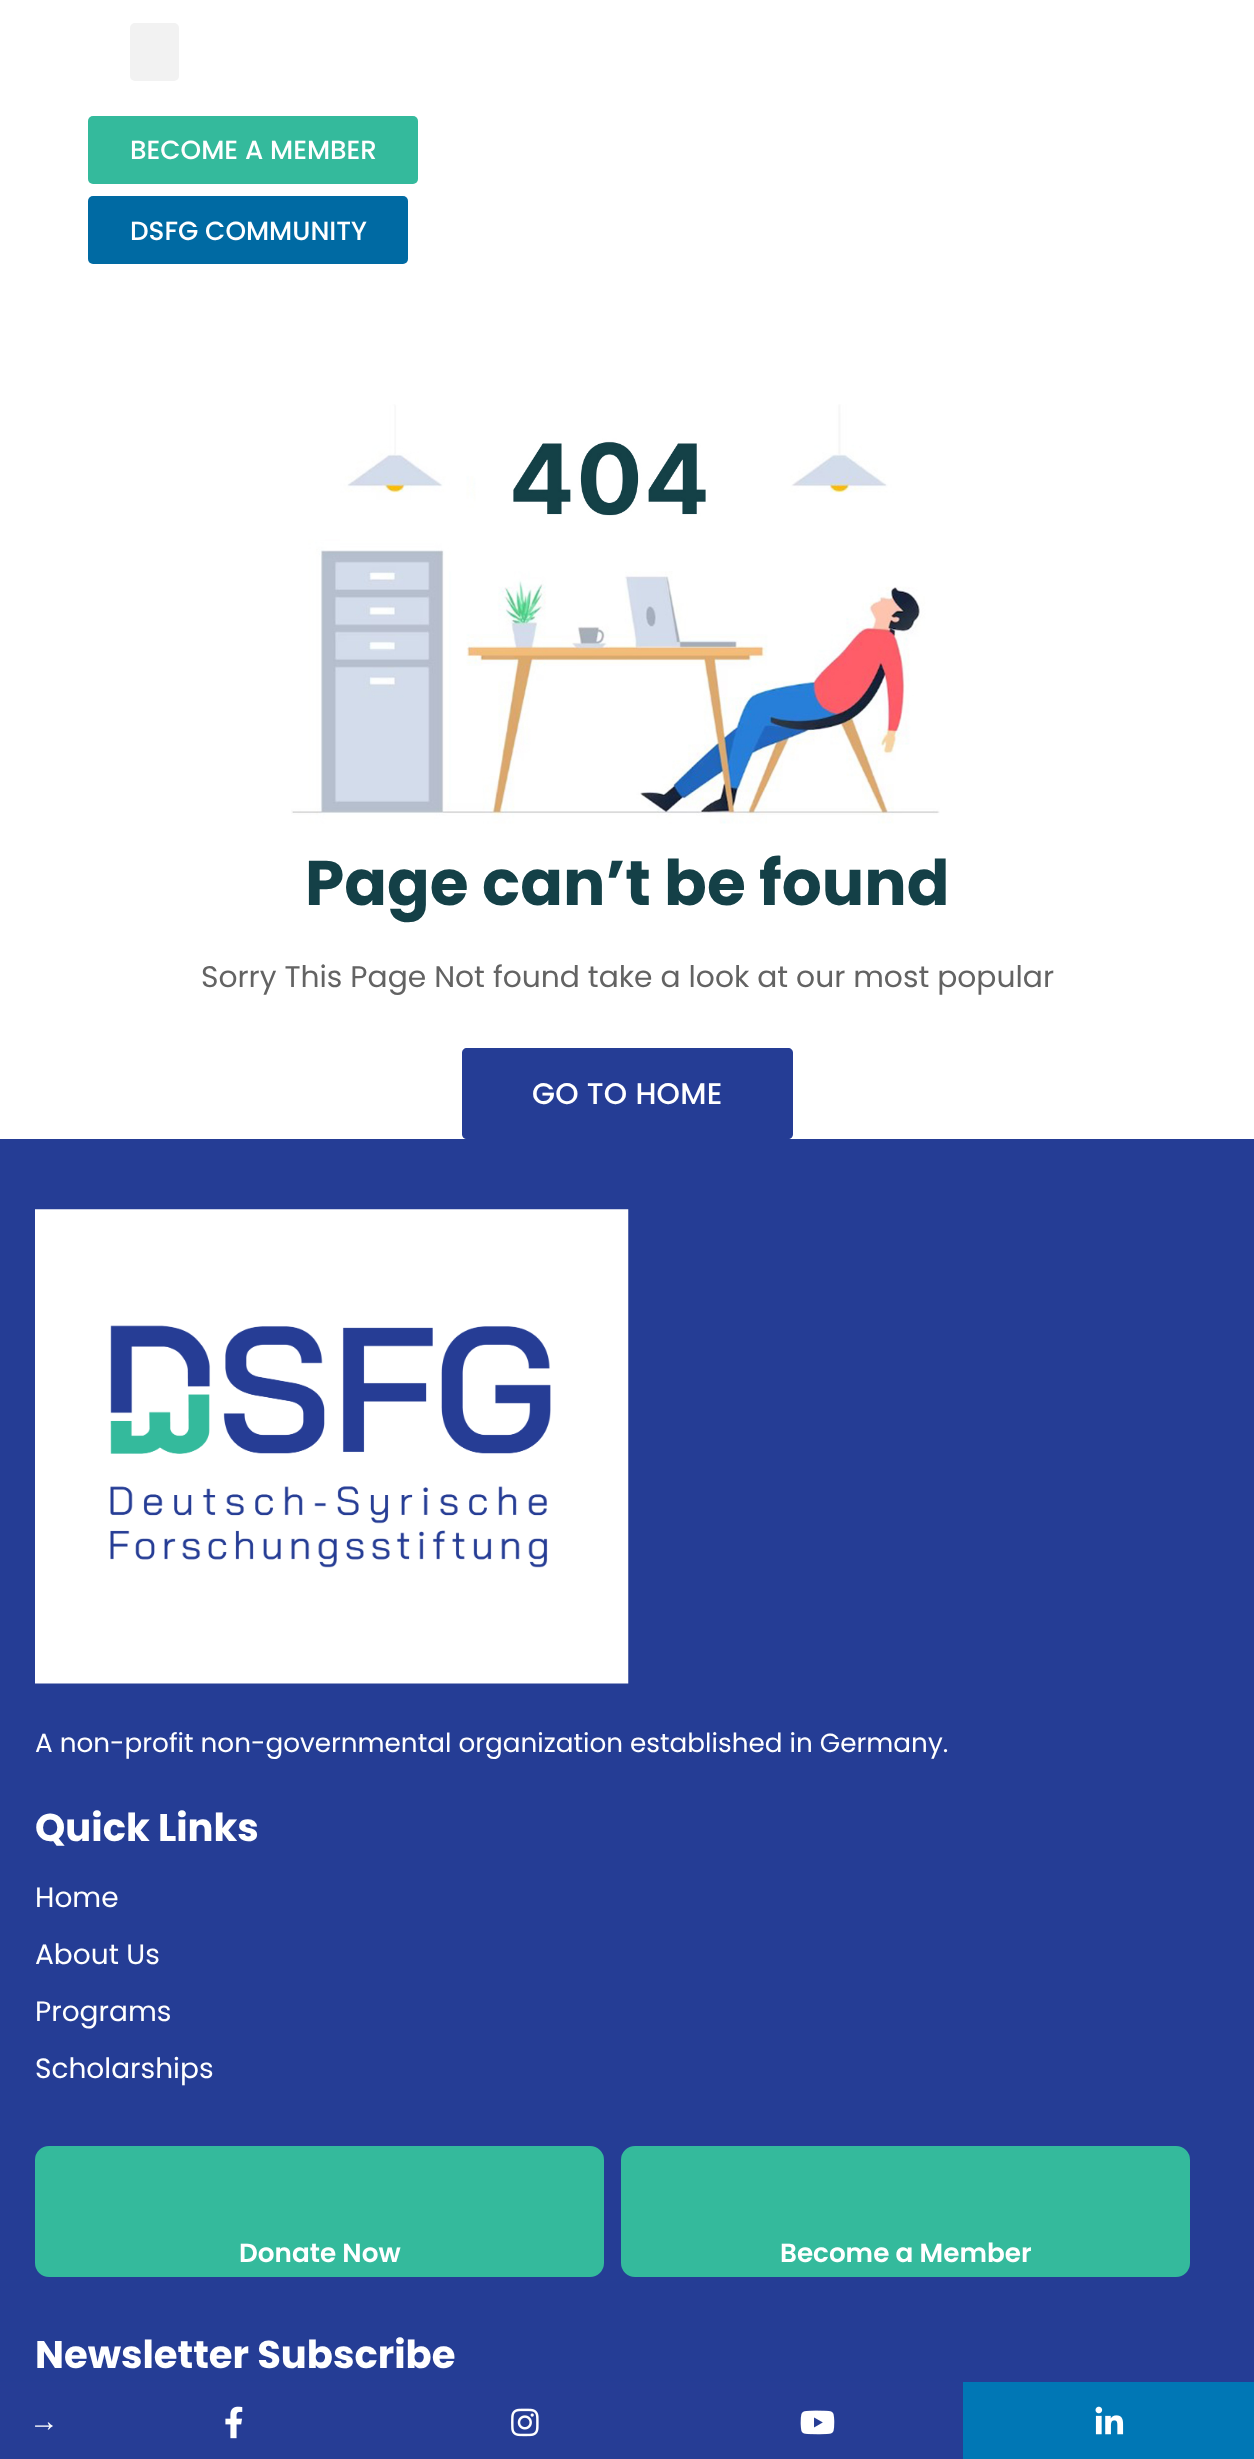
<svg xmlns="http://www.w3.org/2000/svg" width="1254" height="2459">
	<rect width="100%" height="100%" fill="#FFFFFF" />
	<rect x="130" y="23" width="49" height="58" rx="5" fill="#F2F2F2" />
	<rect x="88" y="116" width="330" height="68" rx="5" fill="#34BA9C" />
	<text x="130" y="159" font-family="Poppins" font-size="26.25" font-weight="500" fill="#FFFFFF">BECOME A MEMBER</text>
	<rect x="88" y="196" width="320" height="68" rx="5" fill="#006AA3" />
	<text x="130" y="240" font-family="Poppins" font-size="26.25" font-weight="500" fill="#FFFFFF">DSFG COMMUNITY</text>
	<image x="291" y="404" width="649" height="420" href="assets/img1.png" />
	<text x="305" y="905" font-family="Poppins" font-size="63" font-weight="700" fill="#144047">Page can’t be found</text>
	<text x="201" y="987" font-family="Poppins" font-size="29.75" fill="#636363">Sorry This Page Not found take a look at our most popular</text>
	<path d="M467 1048H788C791 1048 793 1050 793 1053V1094H462V1053C462 1050 464 1048 467 1048Z" fill="#253D95" />
	<path d="M462 1094H793V1134C793 1137 791 1139 788 1139H467C464 1139 462 1137 462 1134Z" fill="#253D95" />
	<text x="532" y="1104" font-family="Poppins" font-size="29.75" font-weight="500" letter-spacing="0.25" fill="#FFFFFF">GO TO HOME</text>
	<rect x="0" y="1139" width="1254" height="1243" fill="#253D95" />
	<image x="35" y="1209" width="594" height="475" href="assets/img2.png" />
	<text x="35" y="1752" font-family="Poppins" font-size="26.25" fill="#FFFFFF">A non-profit non-governmental organization established in Germany.</text>
	<text x="35" y="1841" font-family="Poppins" font-size="38.5" font-weight="700" fill="#FFFFFF">Quick Links</text>
	<g font-family="Poppins" font-size="28" fill="#FFFFFF">
		<text x="35" y="1907">Home</text>
		<text x="35" y="1964">About Us</text>
		<text x="35" y="2021">Programs</text>
		<text x="35" y="2078">Scholarships</text>
	</g>
	<rect x="36" y="2147" width="567" height="129" rx="13" fill="#34BA9C" stroke="#34BA9C" stroke-width="2" />
	<text x="239" y="2262" font-family="Poppins" font-size="26.25" font-weight="600" fill="#FFFFFF">Donate Now</text>
	<rect x="622" y="2147" width="567" height="129" rx="13" fill="#34BA9C" stroke="#34BA9C" stroke-width="2" />
	<text x="780" y="2262" font-family="Poppins" font-size="26.25" font-weight="600" fill="#FFFFFF">Become a Member</text>
	<text x="35" y="2368" font-family="Poppins" font-size="38.5" font-weight="700" fill="#FFFFFF">Newsletter Subscribe</text>
	<rect x="0" y="2382" width="963" height="77" fill="#263D95" />
	<text x="29" y="2431" font-family="Liberation Sans" font-size="29.75" fill="#FFFFFF">→</text>
	<image x="225" y="2406" width="18" height="33" href="assets/img3.png" />
	<image x="511" y="2408" width="28" height="29" href="assets/img4.png" />
	<image x="800" y="2410" width="35" height="25" href="assets/img5.png" />
	<rect x="963" y="2382" width="291" height="77" fill="#0077B5" />
	<image x="1095" y="2406" width="29" height="29" href="assets/img6.png" />
</svg>
